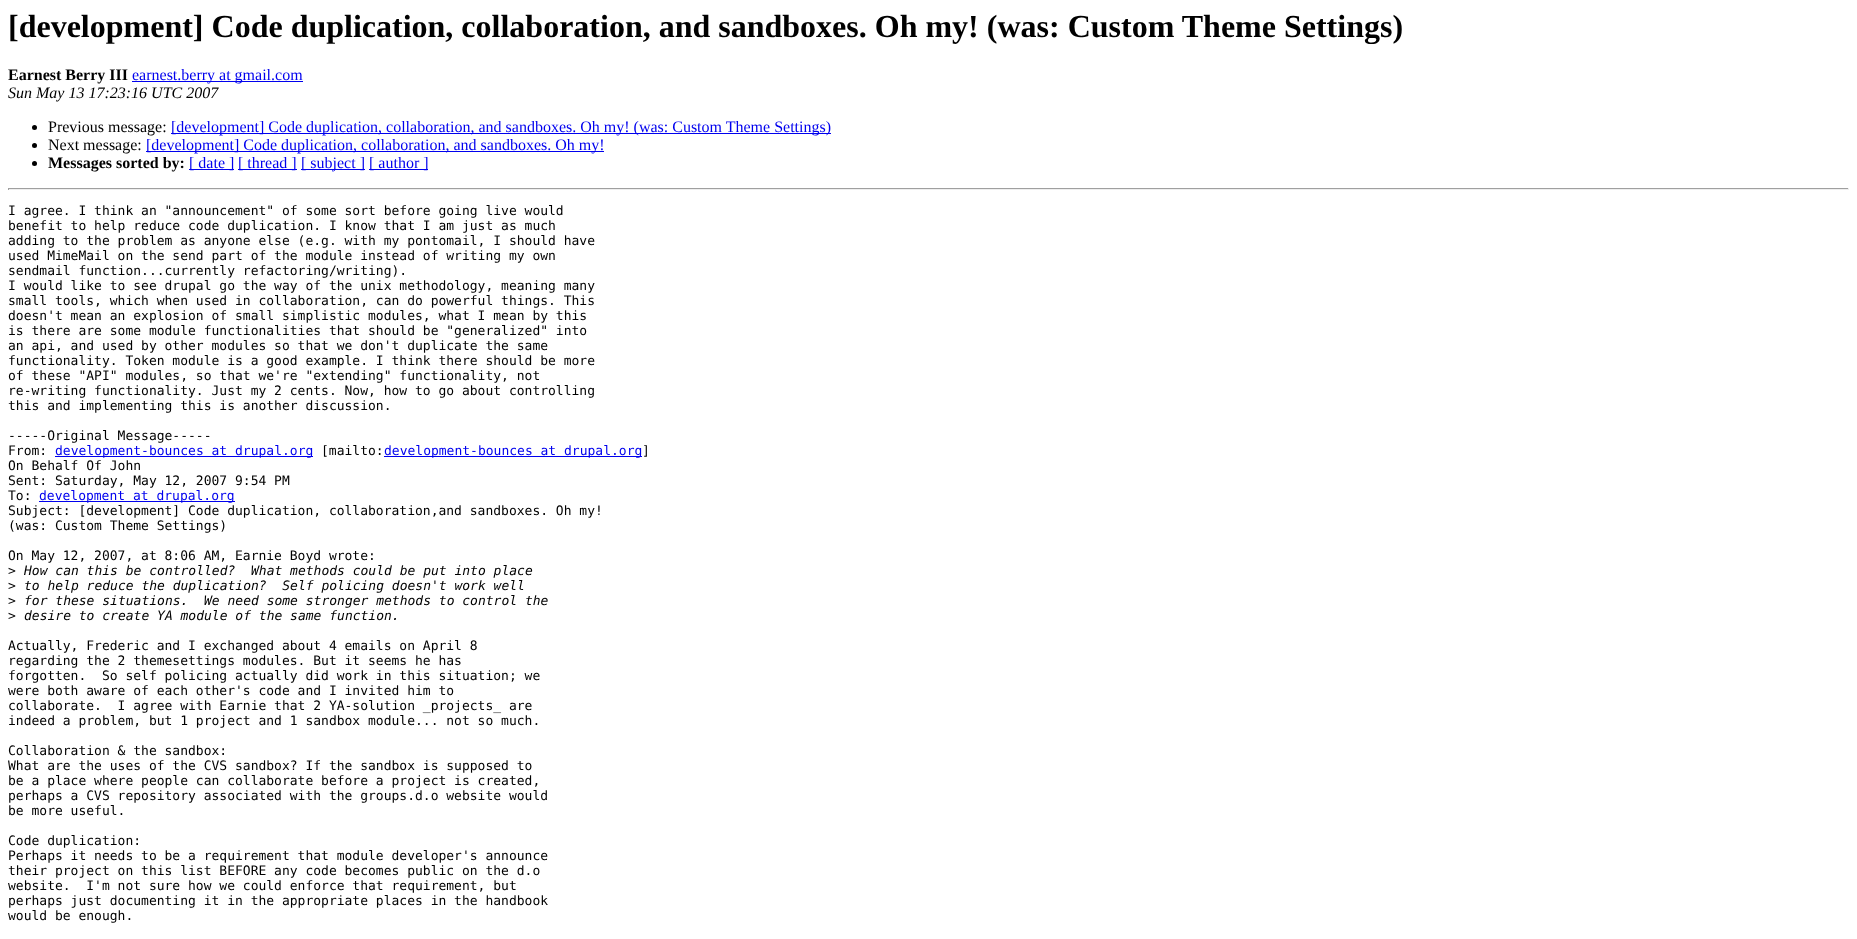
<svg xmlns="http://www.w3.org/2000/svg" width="1857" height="939">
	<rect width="100%" height="100%" fill="#FFFFFF" />
	<text x="8" y="37" font-family="Liberation Serif" font-size="32" font-weight="700" fill="#000000">[development] Code duplication, collaboration, and sandboxes. Oh my! (was: Custom Theme Settings)</text>
	<text x="8" y="80" font-family="Liberation Serif" font-size="16" font-weight="700" fill="#000000">Earnest Berry III</text>
	<rect x="132" y="81" width="171" height="1" fill="#0000EE" />
	<text x="132" y="80" font-family="Liberation Serif" font-size="16" fill="#0000EE">earnest.berry at gmail.com</text>
	<text x="8" y="98" font-family="Liberation Serif" font-size="16" font-style="italic" fill="#000000">Sun May 13 17:23:16 UTC 2007</text>
	<circle cx="34.5" cy="127.5" r="2.5" fill="#000000" />
	<text x="48" y="132" font-family="Liberation Serif" font-size="16" fill="#000000">Previous message:</text>
	<rect x="171" y="133" width="660" height="1" fill="#0000EE" />
	<text x="171" y="132" font-family="Liberation Serif" font-size="16" fill="#0000EE">[development] Code duplication, collaboration, and sandboxes. Oh my! (was: Custom Theme Settings)</text>
	<circle cx="34.5" cy="145.5" r="2.5" fill="#000000" />
	<text x="48" y="150" font-family="Liberation Serif" font-size="16" fill="#000000">Next message:</text>
	<rect x="146" y="151" width="458" height="1" fill="#0000EE" />
	<text x="146" y="150" font-family="Liberation Serif" font-size="16" fill="#0000EE">[development] Code duplication, collaboration, and sandboxes. Oh my!</text>
	<circle cx="34.5" cy="163.5" r="2.5" fill="#000000" />
	<text x="48" y="168" font-family="Liberation Serif" font-size="16" font-weight="700" fill="#000000">Messages sorted by:</text>
	<rect x="189" y="169" width="45" height="1" fill="#0000EE" />
	<text x="189" y="168" font-family="Liberation Serif" font-size="16" fill="#0000EE">[ date ]</text>
	<rect x="238" y="169" width="59" height="1" fill="#0000EE" />
	<text x="238" y="168" font-family="Liberation Serif" font-size="16" fill="#0000EE">[ thread ]</text>
	<rect x="301" y="169" width="64" height="1" fill="#0000EE" />
	<text x="301" y="168" font-family="Liberation Serif" font-size="16" fill="#0000EE">[ subject ]</text>
	<rect x="369" y="169" width="59" height="1" fill="#0000EE" />
	<text x="369" y="168" font-family="Liberation Serif" font-size="16" fill="#0000EE">[ author ]</text>
	<rect x="8" y="188" width="1841" height="1" fill="#9F9F9F" />
	<rect x="1848" y="188" width="1" height="2" fill="#EEEEEE" />
	<rect x="8" y="189" width="1841" height="1" fill="#EEEEEE" />
	<rect x="8" y="188" width="1" height="2" fill="#9F9F9F" />
	<g font-family="DejaVu Sans Mono" font-size="13" fill="#000000">
		<text x="8" y="215">I agree. I think an "announcement" of some sort before going live would</text>
		<text x="8" y="230">benefit to help reduce code duplication. I know that I am just as much</text>
		<text x="8" y="245">adding to the problem as anyone else (e.g. with my pontomail, I should have</text>
		<text x="8" y="260">used MimeMail on the send part of the module instead of writing my own</text>
		<text x="8" y="275">sendmail function...currently refactoring/writing).</text>
		<text x="8" y="290">I would like to see drupal go the way of the unix methodology, meaning many</text>
		<text x="8" y="305">small tools, which when used in collaboration, can do powerful things. This</text>
		<text x="8" y="320">doesn't mean an explosion of small simplistic modules, what I mean by this</text>
		<text x="8" y="335">is there are some module functionalities that should be "generalized" into</text>
		<text x="8" y="350">an api, and used by other modules so that we don't duplicate the same</text>
		<text x="8" y="365">functionality. Token module is a good example. I think there should be more</text>
		<text x="8" y="380">of these "API" modules, so that we're "extending" functionality, not</text>
		<text x="8" y="395">re-writing functionality. Just my 2 cents. Now, how to go about controlling</text>
		<text x="8" y="410">this and implementing this is another discussion.</text>
		<text x="8" y="440">-----Original Message-----</text>
		<text x="8" y="455">From:</text>
	</g>
	<rect x="55" y="456" width="258" height="1" fill="#0000EE" />
	<text x="55" y="455" font-family="DejaVu Sans Mono" font-size="13" fill="#0000EE">development-bounces at drupal.org</text>
	<text x="321" y="455" font-family="DejaVu Sans Mono" font-size="13" fill="#000000">[mailto:</text>
	<rect x="384" y="456" width="258" height="1" fill="#0000EE" />
	<text x="384" y="455" font-family="DejaVu Sans Mono" font-size="13" fill="#0000EE">development-bounces at drupal.org</text>
	<g font-family="DejaVu Sans Mono" font-size="13" fill="#000000">
		<text x="642" y="455">]</text>
		<text x="8" y="470">On Behalf Of John</text>
		<text x="8" y="485">Sent: Saturday, May 12, 2007 9:54 PM</text>
		<text x="8" y="500">To:</text>
	</g>
	<rect x="39" y="501" width="196" height="1" fill="#0000EE" />
	<text x="39" y="500" font-family="DejaVu Sans Mono" font-size="13" fill="#0000EE">development at drupal.org</text>
	<g font-family="DejaVu Sans Mono" font-size="13" fill="#000000">
		<text x="8" y="515">Subject: [development] Code duplication, collaboration,and sandboxes. Oh my!</text>
		<text x="8" y="530">(was: Custom Theme Settings)</text>
		<text x="8" y="560">On May 12, 2007, at 8:06 AM, Earnie Boyd wrote:</text>
		<text x="8" y="575">&gt;</text>
	</g>
	<text x="24" y="575" font-family="DejaVu Sans Mono" font-size="13" font-style="italic" fill="#000000" xml:space="preserve">How can this be controlled?  What methods could be put into place</text>
	<text x="8" y="590" font-family="DejaVu Sans Mono" font-size="13" fill="#000000">&gt;</text>
	<text x="24" y="590" font-family="DejaVu Sans Mono" font-size="13" font-style="italic" fill="#000000" xml:space="preserve">to help reduce the duplication?  Self policing doesn't work well</text>
	<text x="8" y="605" font-family="DejaVu Sans Mono" font-size="13" fill="#000000">&gt;</text>
	<text x="24" y="605" font-family="DejaVu Sans Mono" font-size="13" font-style="italic" fill="#000000" xml:space="preserve">for these situations.  We need some stronger methods to control the</text>
	<text x="8" y="620" font-family="DejaVu Sans Mono" font-size="13" fill="#000000">&gt;</text>
	<text x="24" y="620" font-family="DejaVu Sans Mono" font-size="13" font-style="italic" fill="#000000">desire to create YA module of the same function.</text>
	<g font-family="DejaVu Sans Mono" font-size="13" fill="#000000">
		<text x="8" y="650">Actually, Frederic and I exchanged about 4 emails on April 8</text>
		<text x="8" y="665">regarding the 2 themesettings modules. But it seems he has</text>
		<text x="8" y="680" xml:space="preserve">forgotten.  So self policing actually did work in this situation; we</text>
		<text x="8" y="695">were both aware of each other's code and I invited him to</text>
		<text x="8" y="710" xml:space="preserve">collaborate.  I agree with Earnie that 2 YA-solution _projects_ are</text>
		<text x="8" y="725">indeed a problem, but 1 project and 1 sandbox module... not so much.</text>
		<text x="8" y="755">Collaboration &amp; the sandbox:</text>
		<text x="8" y="770">What are the uses of the CVS sandbox? If the sandbox is supposed to</text>
		<text x="8" y="785">be a place where people can collaborate before a project is created,</text>
		<text x="8" y="800">perhaps a CVS repository associated with the groups.d.o website would</text>
		<text x="8" y="815">be more useful.</text>
		<text x="8" y="845">Code duplication:</text>
		<text x="8" y="860">Perhaps it needs to be a requirement that module developer's announce</text>
		<text x="8" y="875">their project on this list BEFORE any code becomes public on the d.o</text>
		<text x="8" y="890" xml:space="preserve">website.  I'm not sure how we could enforce that requirement, but</text>
		<text x="8" y="905">perhaps just documenting it in the appropriate places in the handbook</text>
		<text x="8" y="920">would be enough.</text>
	</g>
</svg>
